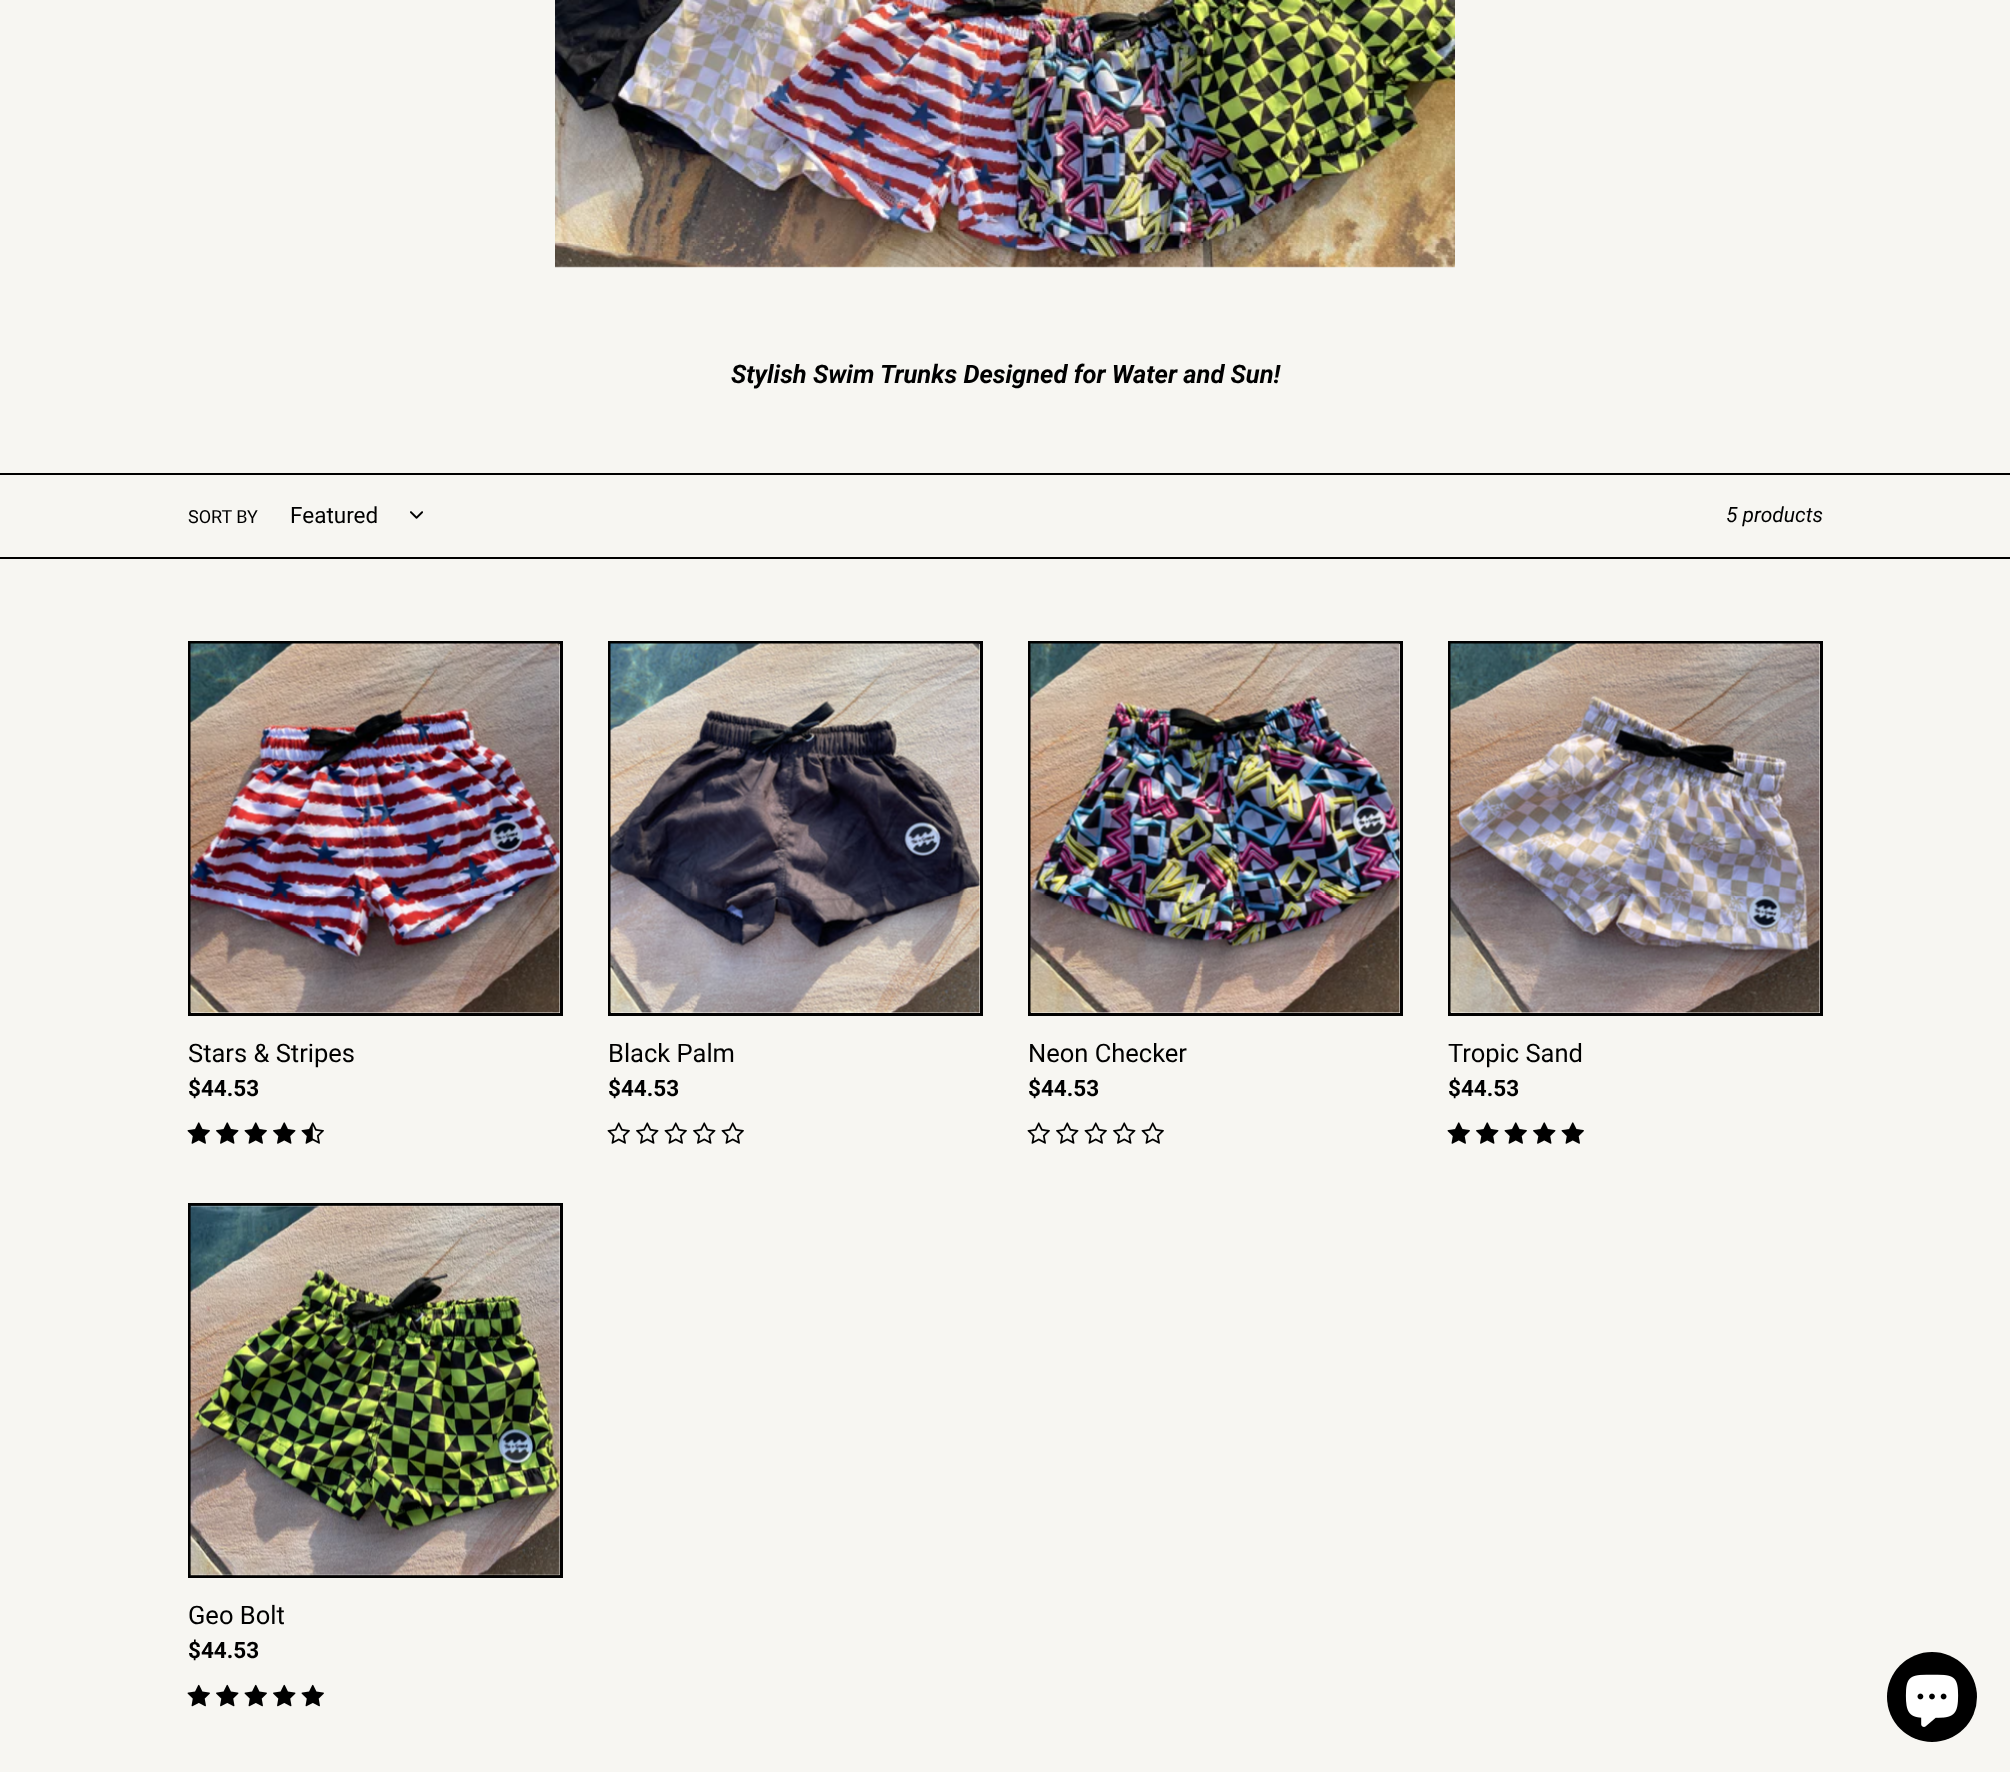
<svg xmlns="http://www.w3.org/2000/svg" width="2010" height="1772">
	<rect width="100%" height="100%" fill="#F7F6F2" />
	<image x="555" y="0" width="900" height="268" href="assets/img1.png" />
	<text x="731" y="383" font-family="Roboto" font-size="25.5" font-weight="700" font-style="italic" fill="#000000">Stylish Swim Trunks Designed for Water and Sun!</text>
	<rect x="0" y="473" width="2010" height="2" fill="#000000" />
	<rect x="0" y="557" width="2010" height="2" fill="#000000" />
	<text x="188" y="523" font-family="Roboto" font-size="18" fill="#000000">SORT BY</text>
	<text x="290" y="523" font-family="Roboto" font-size="22.5" fill="#000000">Featured</text>
	<image x="410" y="511" width="13" height="8" href="assets/img2.png" />
	<text x="1726" y="522" font-family="Roboto" font-size="21" font-style="italic" fill="#000000">5 products</text>
	<rect x="189.5" y="642.5" width="372" height="372" fill="none" stroke="#000000" stroke-width="3" />
	<image x="190" y="643" width="370" height="370" href="assets/img3.png" />
	<text x="188" y="1062" font-family="Roboto" font-size="25.5" fill="#000000">Stars &amp; Stripes</text>
	<text x="188" y="1096" font-family="Roboto" font-size="22.5" font-weight="700" fill="#000000">$44.53</text>
	<image x="187" y="1122" width="23" height="22" href="assets/img4.png" />
	<image x="216" y="1122" width="23" height="22" href="assets/img5.png" />
	<image x="244" y="1122" width="23" height="22" href="assets/img4.png" />
	<image x="273" y="1122" width="23" height="22" href="assets/img5.png" />
	<image x="301" y="1122" width="23" height="22" href="assets/img6.png" />
	<rect x="609.5" y="642.5" width="372" height="372" fill="none" stroke="#000000" stroke-width="3" />
	<image x="610" y="643" width="370" height="370" href="assets/img7.png" />
	<text x="608" y="1062" font-family="Roboto" font-size="25.5" fill="#000000">Black Palm</text>
	<text x="608" y="1096" font-family="Roboto" font-size="22.5" font-weight="700" fill="#000000">$44.53</text>
	<image x="607" y="1122" width="23" height="22" href="assets/img8.png" />
	<image x="636" y="1122" width="23" height="22" href="assets/img9.png" />
	<image x="664" y="1122" width="23" height="22" href="assets/img8.png" />
	<image x="693" y="1122" width="23" height="22" href="assets/img9.png" />
	<image x="721" y="1122" width="23" height="22" href="assets/img8.png" />
	<rect x="1029.5" y="642.5" width="372" height="372" fill="none" stroke="#000000" stroke-width="3" />
	<image x="1030" y="643" width="370" height="370" href="assets/img10.png" />
	<text x="1028" y="1062" font-family="Roboto" font-size="25.5" fill="#000000">Neon Checker</text>
	<text x="1028" y="1096" font-family="Roboto" font-size="22.5" font-weight="700" fill="#000000">$44.53</text>
	<image x="1027" y="1122" width="23" height="22" href="assets/img8.png" />
	<image x="1056" y="1122" width="23" height="22" href="assets/img9.png" />
	<image x="1084" y="1122" width="23" height="22" href="assets/img8.png" />
	<image x="1113" y="1122" width="23" height="22" href="assets/img9.png" />
	<image x="1141" y="1122" width="23" height="22" href="assets/img8.png" />
	<rect x="1449.5" y="642.5" width="372" height="372" fill="none" stroke="#000000" stroke-width="3" />
	<image x="1450" y="643" width="370" height="370" href="assets/img11.png" />
	<text x="1448" y="1062" font-family="Roboto" font-size="25.5" fill="#000000">Tropic Sand</text>
	<text x="1448" y="1096" font-family="Roboto" font-size="22.5" font-weight="700" fill="#000000">$44.53</text>
	<image x="1447" y="1122" width="23" height="22" href="assets/img4.png" />
	<image x="1476" y="1122" width="23" height="22" href="assets/img5.png" />
	<image x="1504" y="1122" width="23" height="22" href="assets/img4.png" />
	<image x="1533" y="1122" width="23" height="22" href="assets/img5.png" />
	<image x="1561" y="1122" width="23" height="22" href="assets/img4.png" />
	<rect x="189.5" y="1204.5" width="372" height="372" fill="none" stroke="#000000" stroke-width="3" />
	<image x="189" y="1205" width="371" height="371" href="assets/img12.png" />
	<text x="188" y="1624" font-family="Roboto" font-size="25.5" fill="#000000">Geo Bolt</text>
	<text x="188" y="1658" font-family="Roboto" font-size="22.5" font-weight="700" fill="#000000">$44.53</text>
	<image x="187" y="1684" width="23" height="23" href="assets/img13.png" />
	<image x="216" y="1684" width="23" height="23" href="assets/img14.png" />
	<image x="244" y="1684" width="23" height="23" href="assets/img13.png" />
	<image x="273" y="1684" width="23" height="23" href="assets/img14.png" />
	<image x="301" y="1684" width="23" height="23" href="assets/img13.png" />
	<circle cx="1932" cy="1697" r="45" fill="#000000" />
	<image x="1905" y="1674" width="54" height="53" href="assets/img15.png" />
</svg>
